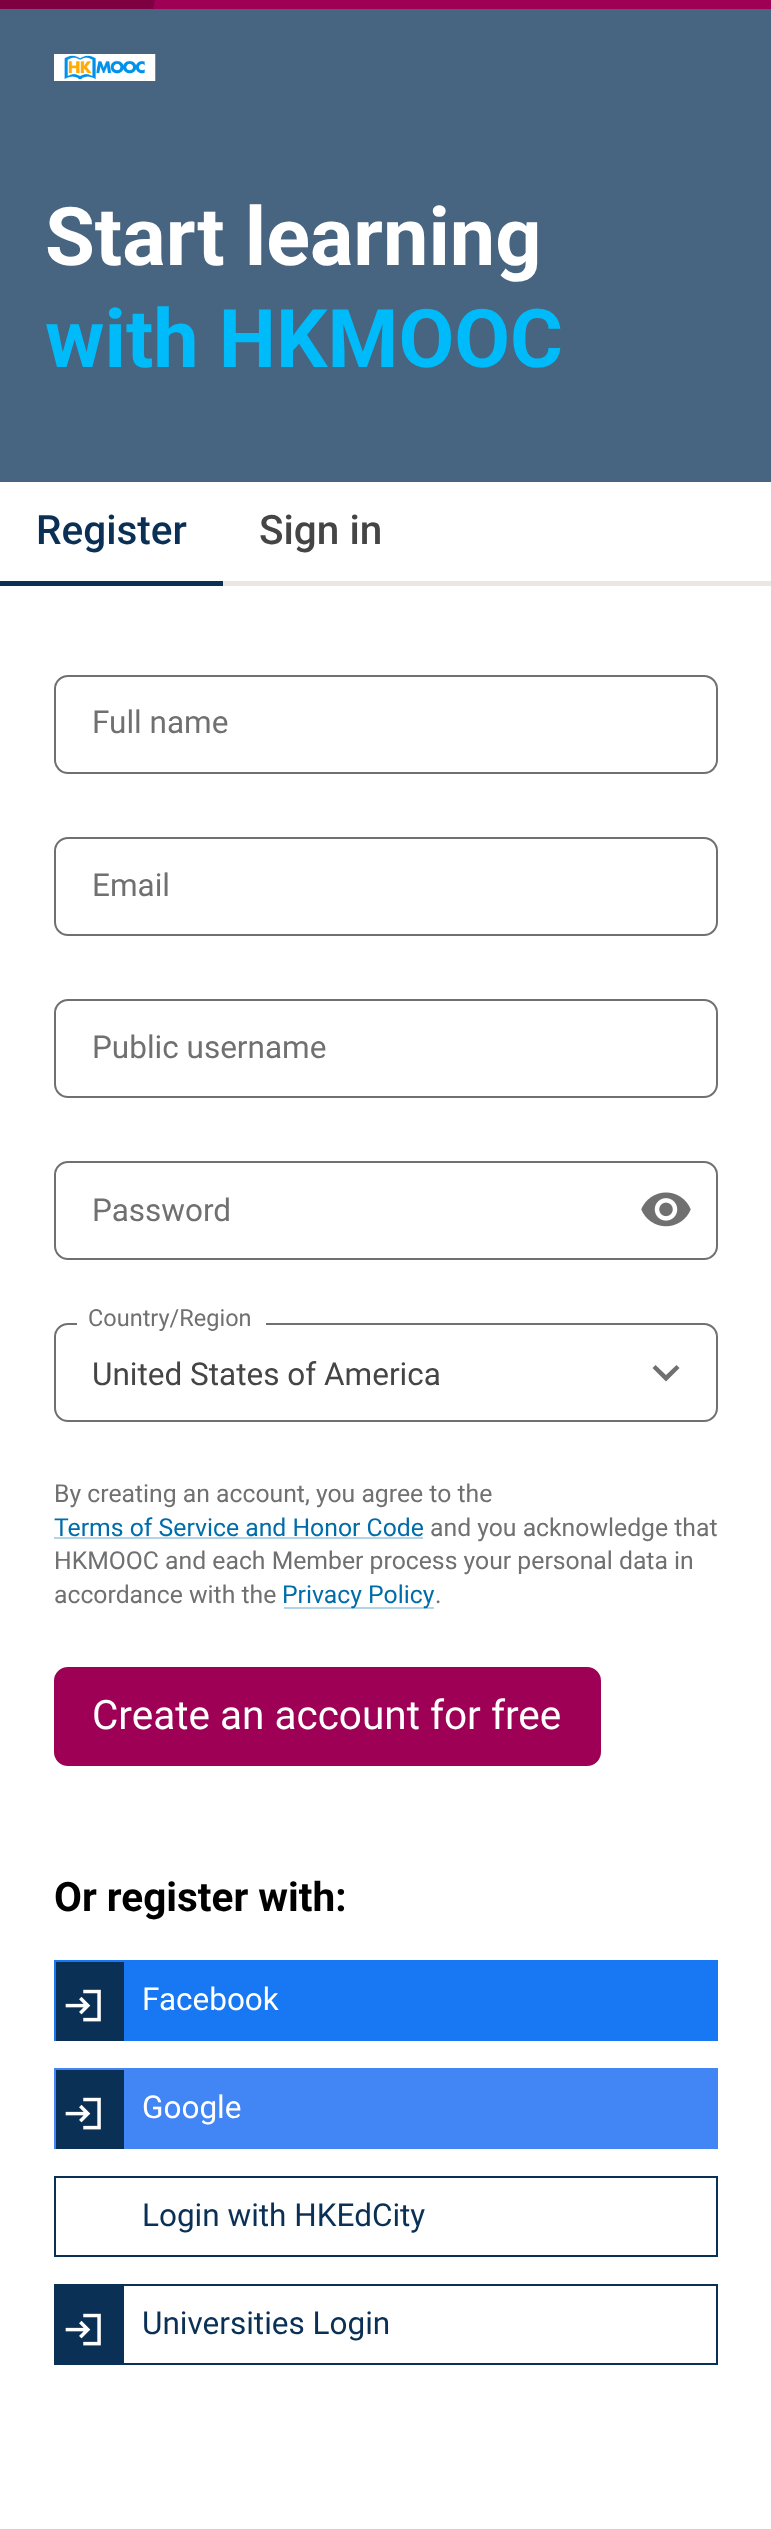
<svg xmlns="http://www.w3.org/2000/svg" width="771" height="2529">
	<defs>
		<linearGradient id="g1" gradientUnits="userSpaceOnUse" x1="16" y1="-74" x2="756" y2="83"><stop offset="0" stop-color="#7E0043" /><stop offset="0.2" stop-color="#7E0043" /><stop offset="0.2" stop-color="#9D0054" /></linearGradient>
	</defs>
	<rect width="100%" height="100%" fill="#FFFFFF" />
	<rect x="0" y="9" width="771" height="473" fill="#476480" />
	<rect x="0" y="0" width="771" height="9" fill="url(#g1)" />
	<image x="54" y="54" width="102" height="27" href="assets/img1.png" />
	<text x="45" y="265" font-family="Roboto" font-size="81" font-weight="700" fill="#FFFFFF">Start learning</text>
	<text x="45" y="367" font-family="Roboto" font-size="81" font-weight="700" fill="#00BBF9">with HKMOOC</text>
	<rect x="223" y="581" width="548" height="5" fill="#E9E6E4" />
	<rect x="0" y="581" width="223" height="5" fill="#0A3055" />
	<text x="36" y="544" font-family="Roboto" font-size="40.5" font-weight="500" fill="#0A3055">Register</text>
	<text x="259" y="544" font-family="Roboto" font-size="40.5" font-weight="500" fill="#454545">Sign in</text>
	<rect x="55" y="676" width="662" height="97" rx="13" fill="none" stroke="#707070" stroke-width="2" />
	<text x="92" y="733" font-family="Roboto" font-size="31.5" fill="#707070">Full name</text>
	<rect x="55" y="838" width="662" height="97" rx="13" fill="none" stroke="#707070" stroke-width="2" />
	<text x="92" y="896" font-family="Roboto" font-size="31.5" fill="#707070">Email</text>
	<rect x="55" y="1000" width="662" height="97" rx="13" fill="none" stroke="#707070" stroke-width="2" />
	<text x="92" y="1058" font-family="Roboto" font-size="31.5" fill="#707070">Public username</text>
	<rect x="55" y="1162" width="662" height="97" rx="13" fill="none" stroke="#707070" stroke-width="2" />
	<text x="92" y="1221" font-family="Roboto" font-size="31.5" fill="#707070">Password</text>
	<image x="641" y="1192" width="50" height="35" href="assets/img2.png" />
	<rect x="55" y="1324" width="662" height="97" rx="13" fill="none" stroke="#707070" stroke-width="2" />
	<rect x="77" y="1323" width="189" height="2" fill="#FFFFFF" />
	<text x="88" y="1326" font-family="Roboto" font-size="23.5" fill="#707070">Country/Region</text>
	<text x="92" y="1385" font-family="Roboto" font-size="31.5" fill="#454545">United States of America</text>
	<path d="M655.5 1365L666 1375L676.5 1365L679.5 1368L666 1381.5L652.5 1368Z" fill="#707070" />
	<text x="54" y="1502" font-family="Roboto" font-size="24.75" fill="#707070">By creating an account, you agree to the</text>
	<text x="54" y="1536" font-family="Roboto" font-size="24.75" fill="#006DAA">Terms of Service and Honor Code</text>
	<rect x="54" y="1537" width="369" height="2" fill="#B3D3E6" />
	<g font-family="Roboto" font-size="24.75" fill="#707070">
		<text x="430" y="1536">and you acknowledge that</text>
		<text x="54" y="1569">HKMOOC and each Member process your personal data in</text>
		<text x="54" y="1603">accordance with the</text>
	</g>
	<rect x="284" y="1607" width="150" height="2" fill="#B3D3E6" />
	<text x="282" y="1603" font-family="Roboto" font-size="24.75" fill="#006DAA">Privacy Policy</text>
	<text x="435" y="1603" font-family="Roboto" font-size="24.75" fill="#707070">.</text>
	<rect x="55" y="1668" width="545" height="97" rx="13" fill="#9D0054" stroke="#9D0054" stroke-width="2" />
	<text x="92" y="1729" font-family="Roboto" font-size="40.5" fill="#FFFFFF">Create an account for free</text>
	<text x="54" y="1911" font-family="Roboto" font-size="40.5" font-weight="700" fill="#000000">Or register with:</text>
	<rect x="54" y="1960" width="664" height="81" fill="#1877F2" />
	<rect x="56" y="1962" width="68" height="79" fill="#0A3055" />
	<image x="65" y="1989" width="36" height="33" href="assets/img3.png" />
	<text x="142" y="2010" font-family="Roboto" font-size="31.5" fill="#FFFFFF">Facebook</text>
	<rect x="54" y="2068" width="664" height="81" fill="#4285F4" />
	<rect x="56" y="2070" width="68" height="79" fill="#0A3055" />
	<image x="65" y="2097" width="36" height="33" href="assets/img3.png" />
	<text x="142" y="2118" font-family="Roboto" font-size="31.5" fill="#FFFFFF">Google</text>
	<rect x="55" y="2177" width="662" height="79" fill="none" stroke="#0A3055" stroke-width="2" />
	<text x="142" y="2226" font-family="Roboto" font-size="31.5" fill="#0A3055">Login with HKEdCity</text>
	<rect x="55" y="2285" width="662" height="79" fill="none" stroke="#0A3055" stroke-width="2" />
	<rect x="56" y="2286" width="68" height="77" fill="#0A3055" />
	<image x="65" y="2313" width="36" height="33" href="assets/img3.png" />
	<text x="142" y="2334" font-family="Roboto" font-size="31.5" fill="#0A3055">Universities Login</text>
</svg>
